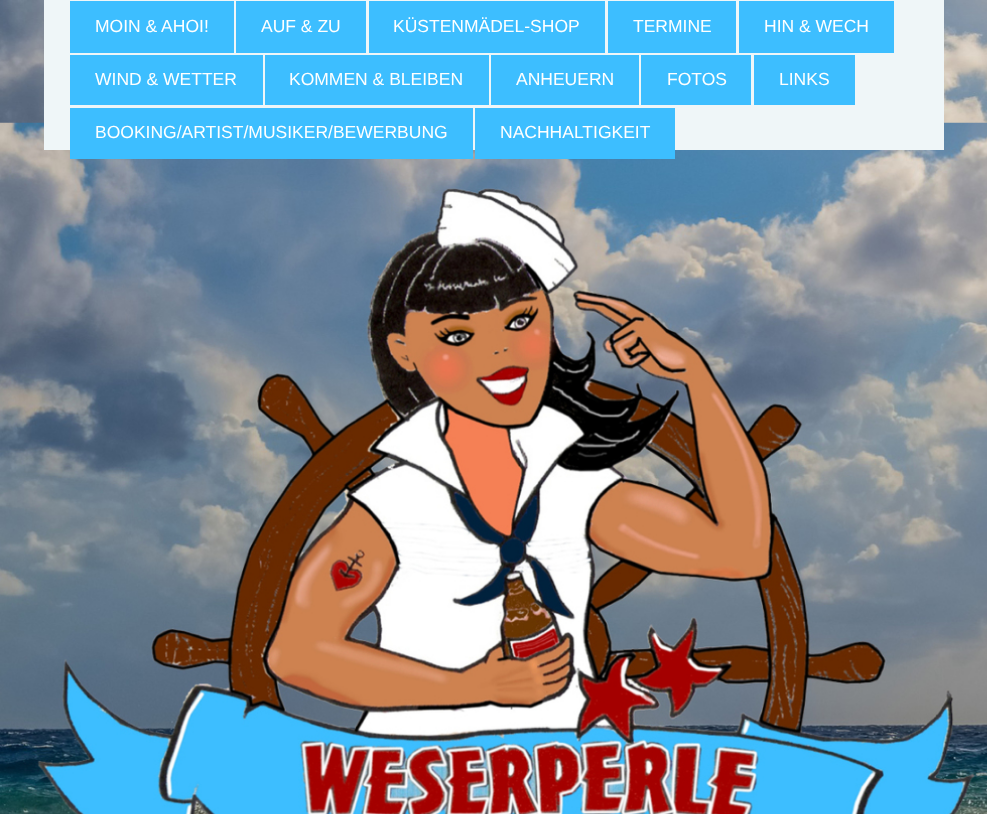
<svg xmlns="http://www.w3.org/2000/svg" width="987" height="814">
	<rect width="100%" height="100%" fill="#FFFFFF" />
	<image x="0" y="0" width="987" height="123" href="assets/img1.png" />
	<image x="0" y="122" width="987" height="692" href="assets/img2.png" />
	<rect x="44" y="0" width="900" height="150" fill="#EFF6F8" />
	<rect x="70" y="1" width="164" height="52" fill="#3DBEFF" />
	<text x="95" y="32" font-family="Liberation Sans" font-size="17.5" fill="#FFFFFF">MOIN &amp; AHOI!</text>
	<rect x="236" y="1" width="130" height="52" fill="#3DBEFF" />
	<text x="261" y="32" font-family="Liberation Sans" font-size="17.5" fill="#FFFFFF">AUF &amp; ZU</text>
	<rect x="369" y="1" width="236" height="52" fill="#3DBEFF" />
	<text x="393" y="32" font-family="Liberation Sans" font-size="17.5" fill="#FFFFFF">KÜSTENMÄDEL-SHOP</text>
	<rect x="608" y="1" width="128" height="52" fill="#3DBEFF" />
	<text x="633" y="32" font-family="Liberation Sans" font-size="17.5" fill="#FFFFFF">TERMINE</text>
	<rect x="739" y="1" width="155" height="52" fill="#3DBEFF" />
	<text x="764" y="32" font-family="Liberation Sans" font-size="17.5" fill="#FFFFFF">HIN &amp; WECH</text>
	<rect x="70" y="55" width="193" height="50" fill="#3DBEFF" />
	<text x="95" y="85" font-family="Liberation Sans" font-size="17.5" fill="#FFFFFF">WIND &amp; WETTER</text>
	<rect x="265" y="55" width="224" height="50" fill="#3DBEFF" />
	<text x="289" y="85" font-family="Liberation Sans" font-size="17.5" fill="#FFFFFF">KOMMEN &amp; BLEIBEN</text>
	<rect x="491" y="55" width="148" height="50" fill="#3DBEFF" />
	<text x="516" y="85" font-family="Liberation Sans" font-size="17.5" fill="#FFFFFF">ANHEUERN</text>
	<rect x="641" y="55" width="110" height="50" fill="#3DBEFF" />
	<text x="667" y="85" font-family="Liberation Sans" font-size="17.5" fill="#FFFFFF">FOTOS</text>
	<rect x="754" y="55" width="101" height="50" fill="#3DBEFF" />
	<text x="779" y="85" font-family="Liberation Sans" font-size="17.5" fill="#FFFFFF">LINKS</text>
	<rect x="70" y="108" width="403" height="51" fill="#3DBEFF" />
	<text x="95" y="138" font-family="Liberation Sans" font-size="17.5" fill="#FFFFFF">BOOKING/ARTIST/MUSIKER/BEWERBUNG</text>
	<rect x="475" y="108" width="200" height="51" fill="#3DBEFF" />
	<text x="500" y="138" font-family="Liberation Sans" font-size="17.5" fill="#FFFFFF">NACHHALTIGKEIT</text>
</svg>
